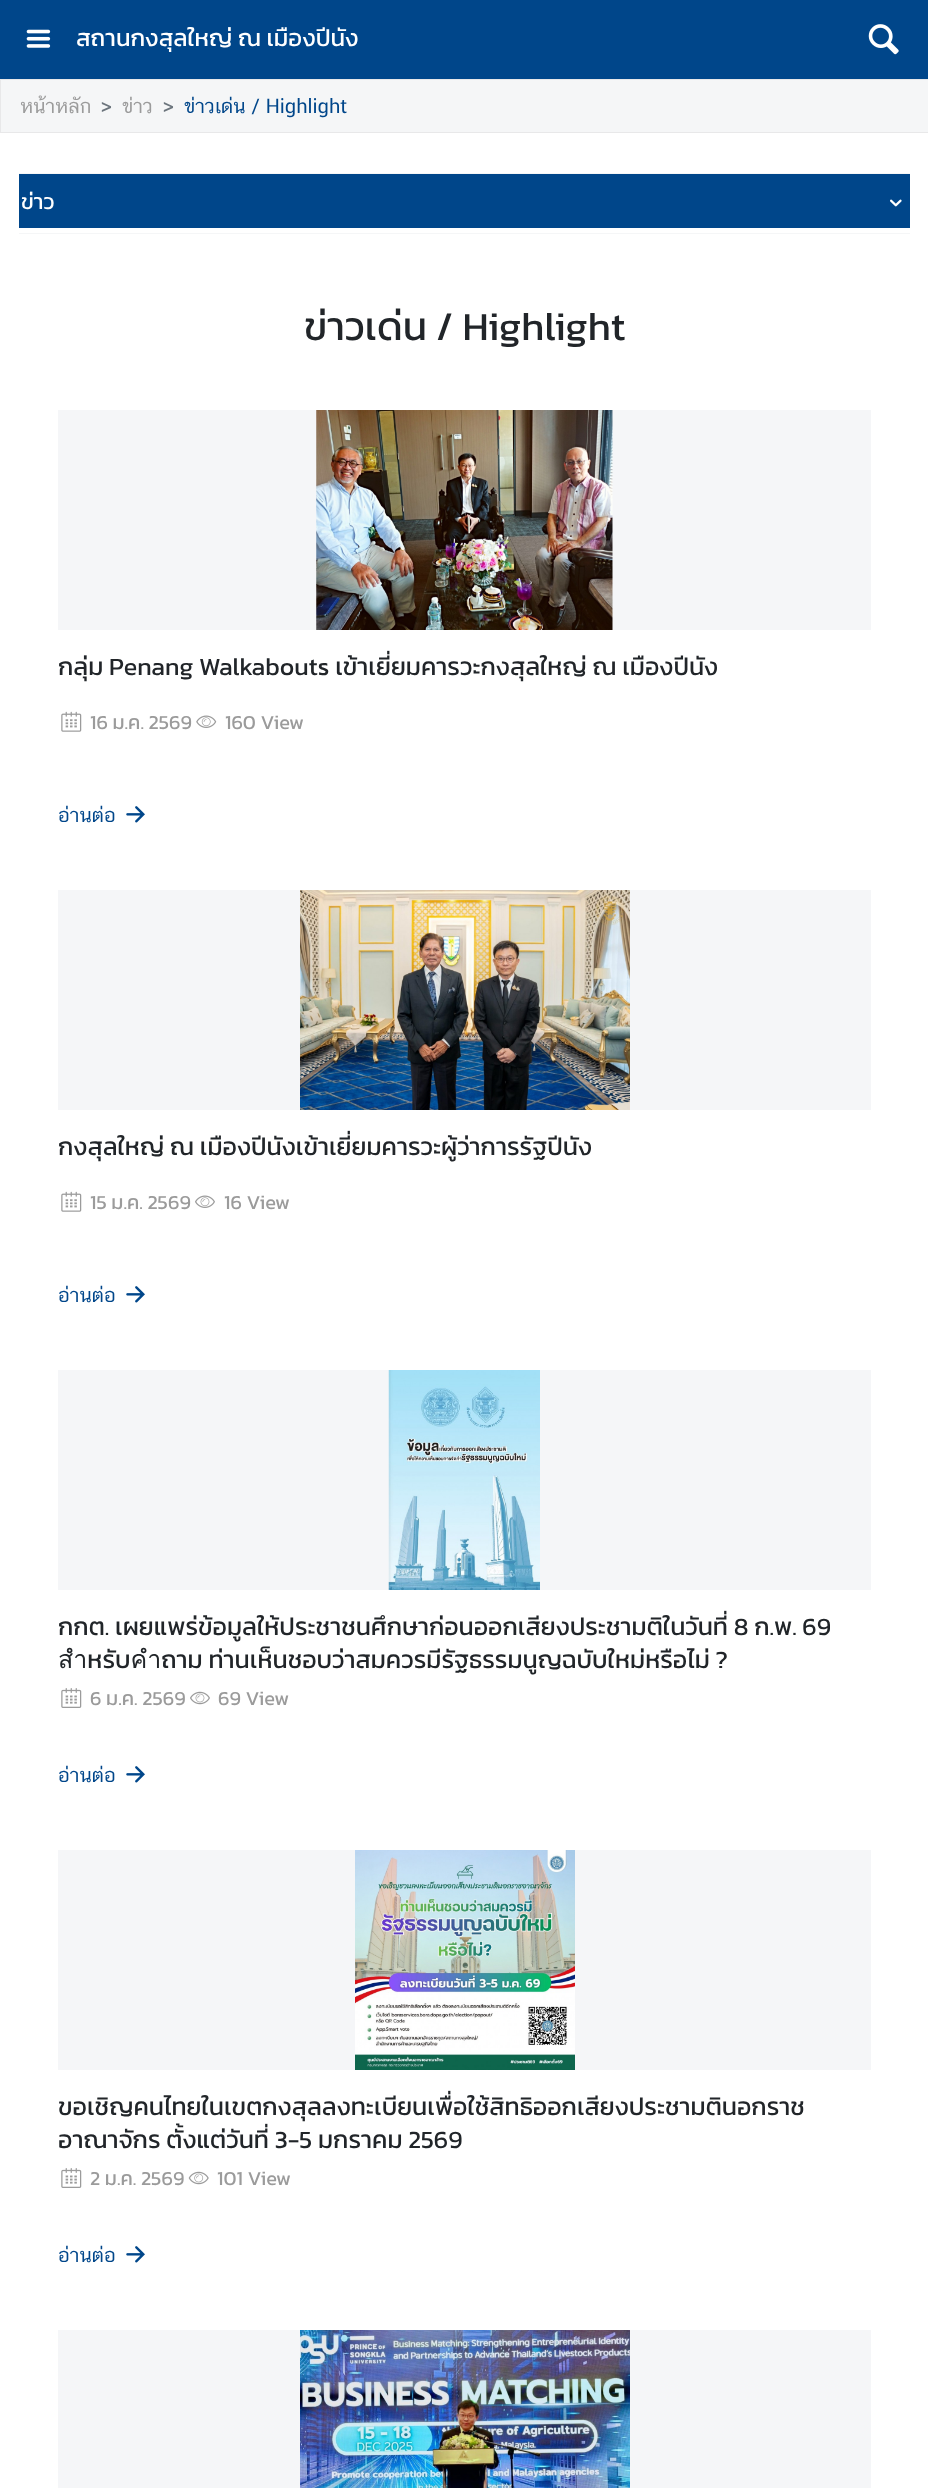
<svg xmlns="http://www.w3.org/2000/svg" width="928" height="2488">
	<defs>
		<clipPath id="clip1"><rect x="19" y="173" width="891" height="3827" /></clipPath>
		<clipPath id="clip2"><rect x="58" y="1610" width="813" height="65" /></clipPath>
	</defs>
	<rect width="100%" height="100%" fill="#FFFFFF" />
	<rect x="0" y="0" width="928" height="79" fill="#00468A" />
	<image x="26" y="29" width="25" height="19" href="assets/img1.png" />
	<text x="76" y="46" font-family="Kanit" font-size="24" fill="#FFFFFF">สถานกงสุลใหญ่ ณ เมืองปีนัง</text>
	<image x="868" y="24" width="31" height="31" href="assets/img2.png" />
	<rect x="0.5" y="79.5" width="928" height="53" fill="#F5F6F7" stroke="#E8E8E9" />
	<text x="20" y="113" font-family="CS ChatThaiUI" font-size="20" fill="#9B9B9B">หน้าหลัก</text>
	<text x="101" y="113" font-family="Kanit" font-size="20" fill="#6C757D">&gt;</text>
	<text x="122" y="113" font-family="CS ChatThaiUI" font-size="20" fill="#9B9B9B">ข่าว</text>
	<text x="163" y="113" font-family="Kanit" font-size="20" fill="#6C757D">&gt;</text>
	<text x="184" y="113" font-family="CS ChatThaiUI" font-size="20" fill="#00468A">ข่าวเด่น / Highlight</text>
	<g clip-path="url(#clip1)">
		<rect x="0.5" y="173.5" width="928" height="60" fill="none" stroke="#F5F6F7" />
	</g>
	<rect x="19" y="174" width="891" height="54" fill="#00468A" />
	<g clip-path="url(#clip1)">
		<text x="21" y="209" font-family="Kanit" font-size="22" fill="#FFFFFF">ข่าว</text>
	</g>
	<image x="890" y="199" width="12" height="8" href="assets/img3.png" />
	<text x="304" y="340" font-family="Kanit" font-size="40" fill="#212529">ข่าวเด่น / Highlight</text>
	<rect x="58" y="410" width="813" height="220" fill="#F5F6F8" />
	<image x="316" y="410" width="297" height="220" href="assets/img4.png" />
	<text x="58" y="675" font-family="Kanit" font-size="25" fill="#212529">กลุ่ม Penang Walkabouts เข้าเยี่ยมคารวะกงสุลใหญ่ ณ เมืองปีนัง</text>
	<image x="61" y="711" width="21" height="21" href="assets/img5.png" />
	<text x="90" y="729" font-family="Kanit" font-size="20" fill="#9B9B9B">16 ม.ค. 2569</text>
	<image x="196" y="715" width="21" height="13" href="assets/img6.png" />
	<text x="225" y="729" font-family="Kanit" font-size="20" fill="#9B9B9B">160 View</text>
	<text x="58" y="822" font-family="CS ChatThaiUI" font-size="20" fill="#00468A">อ่านต่อ</text>
	<image x="126" y="806" width="19" height="17" href="assets/img7.png" />
	<rect x="58" y="890" width="813" height="220" fill="#F5F6F8" />
	<image x="300" y="890" width="330" height="220" href="assets/img8.png" />
	<text x="58" y="1155" font-family="Kanit" font-size="25" fill="#212529">กงสุลใหญ่ ณ เมืองปีนังเข้าเยี่ยมคารวะผู้ว่าการรัฐปีนัง</text>
	<image x="61" y="1191" width="21" height="21" href="assets/img5.png" />
	<text x="90" y="1209" font-family="Kanit" font-size="20" fill="#9B9B9B">15 ม.ค. 2569</text>
	<image x="195" y="1195" width="20" height="13" href="assets/img9.png" />
	<text x="224" y="1209" font-family="Kanit" font-size="20" fill="#9B9B9B">16 View</text>
	<text x="58" y="1302" font-family="CS ChatThaiUI" font-size="20" fill="#00468A">อ่านต่อ</text>
	<image x="126" y="1286" width="19" height="17" href="assets/img7.png" />
	<rect x="58" y="1370" width="813" height="220" fill="#F5F6F8" />
	<image x="388" y="1370" width="152" height="220" href="assets/img10.png" />
	<text x="58" y="1635" font-family="Kanit" font-size="25" fill="#212529">กกต. เผยแพร่ข้อมูลให้ประชาชนศึกษาก่อนออกเสียงประชามติในวันที่ 8 ก.พ. 69</text>
	<g clip-path="url(#clip2)">
		<text x="58" y="1668" font-family="Kanit" font-size="25" fill="#212529">สำหรับคำถาม ท่านเห็นชอบว่าสมควรมีรัฐธรรมนูญฉบับใหม่หรือไม่ ?</text>
	</g>
	<image x="61" y="1688" width="21" height="20" href="assets/img11.png" />
	<text x="90" y="1705" font-family="Kanit" font-size="20" fill="#9B9B9B">6 ม.ค. 2569</text>
	<image x="190" y="1691" width="20" height="14" href="assets/img12.png" />
	<text x="218" y="1705" font-family="Kanit" font-size="20" fill="#9B9B9B">69 View</text>
	<text x="58" y="1782" font-family="CS ChatThaiUI" font-size="20" fill="#00468A">อ่านต่อ</text>
	<image x="126" y="1766" width="19" height="17" href="assets/img7.png" />
	<rect x="58" y="1850" width="813" height="220" fill="#F5F6F8" />
	<image x="355" y="1850" width="220" height="220" href="assets/img13.png" />
	<g font-family="Kanit" font-size="25" fill="#212529">
		<text x="58" y="2115">ขอเชิญคนไทยในเขตกงสุลลงทะเบียนเพื่อใช้สิทธิออกเสียงประชามตินอกราช</text>
		<text x="58" y="2148">อาณาจักร ตั้งแต่วันที่ 3-5 มกราคม 2569</text>
	</g>
	<image x="61" y="2168" width="21" height="20" href="assets/img11.png" />
	<text x="90" y="2185" font-family="Kanit" font-size="20" fill="#9B9B9B">2 ม.ค. 2569</text>
	<image x="188" y="2171" width="21" height="14" href="assets/img14.png" />
	<text x="217" y="2185" font-family="Kanit" font-size="20" fill="#9B9B9B">101 View</text>
	<text x="58" y="2262" font-family="CS ChatThaiUI" font-size="20" fill="#00468A">อ่านต่อ</text>
	<image x="126" y="2246" width="19" height="17" href="assets/img7.png" />
	<rect x="58" y="2330" width="813" height="158" fill="#F5F6F8" />
	<image x="300" y="2330" width="330" height="158" href="assets/img15.png" />
</svg>
